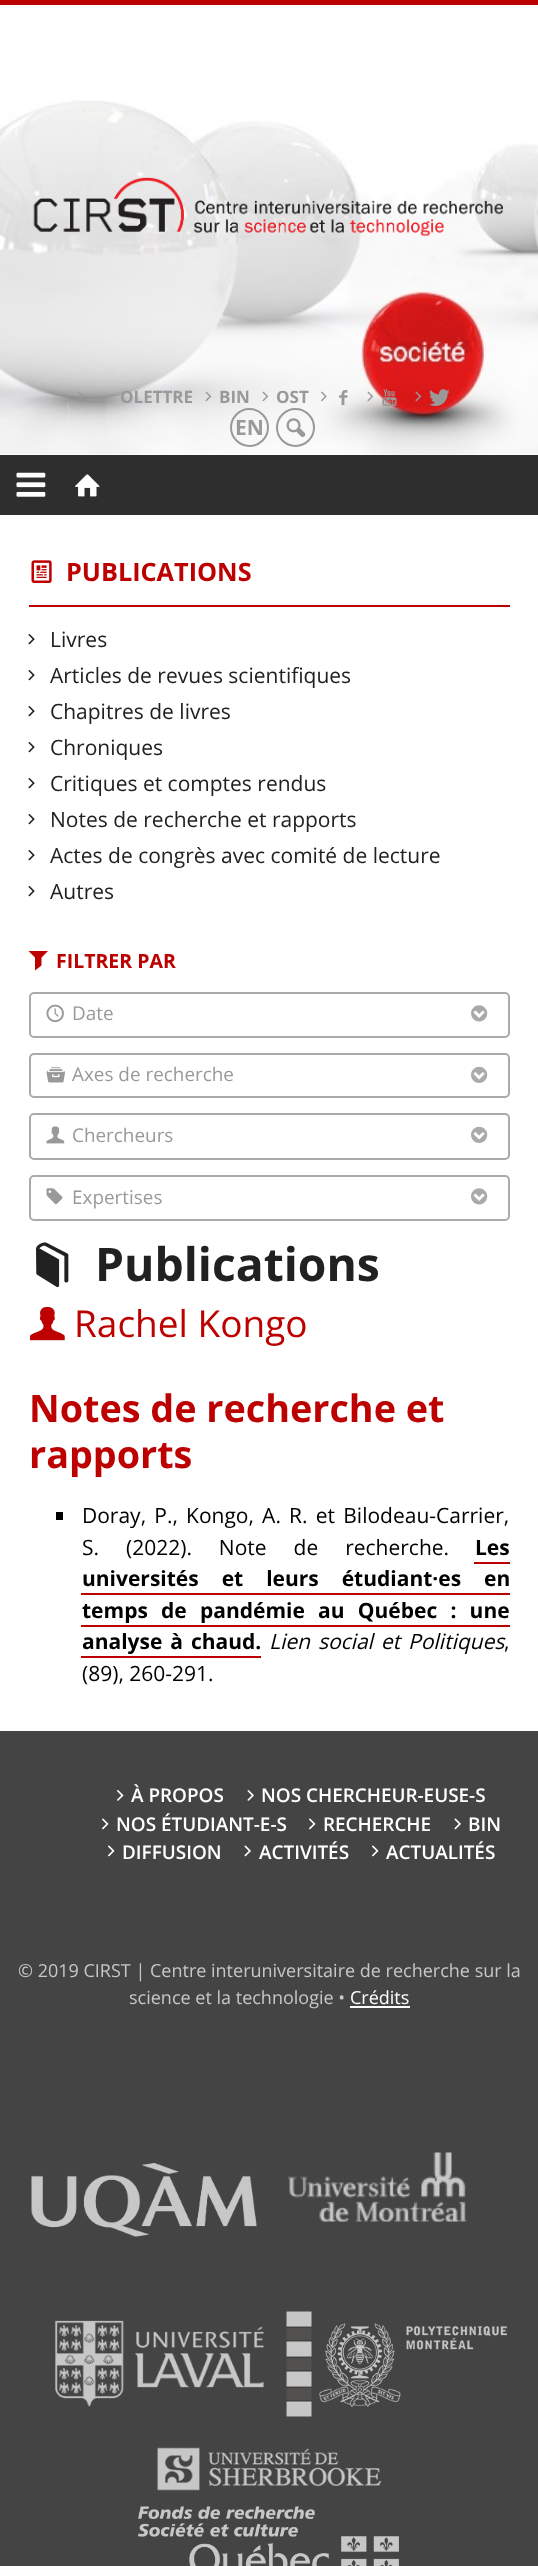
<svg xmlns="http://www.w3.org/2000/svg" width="538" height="2566">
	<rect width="100%" height="100%" fill="#FFFFFF" />
	<image x="0" y="100" width="538" height="355" href="assets/img1.png" />
	<rect x="0" y="0" width="538" height="5" fill="#BD0000" />
	<image x="33" y="177" width="470" height="59" href="assets/img2.png" />
	<image x="78" y="391" width="5" height="9" href="assets/img3.png" />
	<text x="120" y="403" font-family="Open Sans" font-size="17" font-weight="700" fill="#999999">OLETTRE</text>
	<image x="205" y="391" width="7" height="11" href="assets/img4.png" />
	<text x="219" y="403" font-family="Open Sans" font-size="17" font-weight="700" fill="#999999">BIN</text>
	<image x="262" y="391" width="7" height="11" href="assets/img5.png" />
	<text x="276" y="403" font-family="Open Sans" font-size="17" font-weight="700" fill="#999999">OST</text>
	<image x="321" y="391" width="6" height="11" href="assets/img6.png" />
	<image x="339" y="390" width="9" height="16" href="assets/img7.png" />
	<image x="367" y="391" width="7" height="11" href="assets/img8.png" />
	<image x="382" y="389" width="15" height="17" href="assets/img9.png" />
	<image x="415" y="391" width="7" height="11" href="assets/img10.png" />
	<image x="429" y="389" width="21" height="17" href="assets/img11.png" />
	<circle cx="249.5" cy="427.5" r="18.5" fill="none" stroke="#999999" stroke-width="2" />
	<text x="235" y="435" font-family="Open Sans" font-size="21" font-weight="700" fill="#999999">EN</text>
	<circle cx="295.5" cy="427.5" r="18.5" fill="none" stroke="#999999" stroke-width="2" />
	<image x="286" y="418" width="20" height="19" href="assets/img12.png" />
	<rect x="0" y="455" width="538" height="60" fill="#2E2E2E" />
	<image x="16" y="472" width="30" height="25" href="assets/img13.png" />
	<image x="75" y="474" width="25" height="23" href="assets/img14.png" />
	<rect x="29" y="605" width="481" height="2" fill="#BD0000" />
	<image x="31" y="560" width="21" height="23" href="assets/img15.png" />
	<text x="66" y="581" font-family="Open Sans" font-size="25.25" font-weight="700" fill="#BD0000">PUBLICATIONS</text>
	<image x="28" y="634" width="7" height="11" href="assets/img16.png" />
	<text x="50" y="647" font-family="Open Sans" font-size="21" fill="#212121">Livres</text>
	<image x="28" y="670" width="7" height="11" href="assets/img16.png" />
	<text x="50" y="683" font-family="Open Sans" font-size="21" fill="#212121">Articles de revues scientifiques</text>
	<image x="28" y="706" width="7" height="11" href="assets/img16.png" />
	<text x="50" y="719" font-family="Open Sans" font-size="21" fill="#212121">Chapitres de livres</text>
	<image x="28" y="742" width="7" height="11" href="assets/img16.png" />
	<text x="50" y="755" font-family="Open Sans" font-size="21" fill="#212121">Chroniques</text>
	<image x="28" y="778" width="7" height="11" href="assets/img16.png" />
	<text x="50" y="791" font-family="Open Sans" font-size="21" fill="#212121">Critiques et comptes rendus</text>
	<image x="28" y="814" width="7" height="11" href="assets/img16.png" />
	<text x="50" y="827" font-family="Open Sans" font-size="21" fill="#212121">Notes de recherche et rapports</text>
	<image x="28" y="850" width="7" height="11" href="assets/img16.png" />
	<text x="50" y="863" font-family="Open Sans" font-size="21" fill="#212121">Actes de congrès avec comité de lecture</text>
	<image x="28" y="886" width="7" height="11" href="assets/img16.png" />
	<text x="50" y="899" font-family="Open Sans" font-size="21" fill="#212121">Autres</text>
	<path d="M28.5 951H48L41.5 957.5V965.5L35 970.5V957.5Z" fill="#BD0000" />
	<text x="56" y="968" font-family="Open Sans" font-size="19.5" font-weight="700" fill="#BD0000">FILTRER PAR</text>
	<rect x="30" y="993" width="479" height="44" rx="4" fill="none" stroke="#AAAAAA" stroke-width="2" />
	<image x="46" y="1004" width="18" height="19" href="assets/img17.png" />
	<text x="72" y="1020" font-family="Open Sans" font-size="18.9" fill="#999999">Date</text>
	<image x="471" y="1005" width="17" height="17" href="assets/img18.png" />
	<rect x="30" y="1054" width="479" height="43" rx="4" fill="none" stroke="#AAAAAA" stroke-width="2" />
	<image x="46" y="1067" width="19" height="16" href="assets/img19.png" />
	<text x="72" y="1081" font-family="Open Sans" font-size="18.9" fill="#999999">Axes de recherche</text>
	<image x="471" y="1066" width="17" height="17" href="assets/img20.png" />
	<rect x="30" y="1114" width="479" height="45" rx="4" fill="none" stroke="#AAAAAA" stroke-width="2" />
	<image x="46" y="1126" width="19" height="18" href="assets/img21.png" />
	<text x="72" y="1142" font-family="Open Sans" font-size="18.9" fill="#999999">Chercheurs</text>
	<image x="471" y="1126" width="17" height="17" href="assets/img20.png" />
	<rect x="30" y="1176" width="479" height="44" rx="4" fill="none" stroke="#AAAAAA" stroke-width="2" />
	<image x="46" y="1188" width="17" height="17" href="assets/img22.png" />
	<text x="72" y="1204" font-family="Open Sans" font-size="18.9" fill="#999999">Expertises</text>
	<image x="471" y="1188" width="17" height="17" href="assets/img18.png" />
	<image x="36" y="1242" width="33" height="46" href="assets/img23.png" />
	<text x="95" y="1281" font-family="Open Sans" font-size="46.25" font-weight="700" fill="#212121">Publications</text>
	<image x="30" y="1306" width="35" height="35" href="assets/img24.png" />
	<text x="74" y="1337" font-family="Open Sans" font-size="37" fill="#BD0000">Rachel Kongo</text>
	<g font-family="Open Sans" font-size="37.75" font-weight="700" fill="#BD0000">
		<text x="29" y="1422">Notes de recherche et</text>
		<text x="29" y="1468">rapports</text>
	</g>
	<rect x="56" y="1512" width="7" height="8" fill="#000000" />
	<g font-family="Open Sans" font-size="21" fill="#000000">
		<text x="82" y="1523" word-spacing="2.75">Doray, P., Kongo, A. R. et Bilodeau-Carrier,</text>
		<text x="82" y="1555" word-spacing="21.5">S. (2022). Note de recherche.</text>
	</g>
	<text x="475" y="1555" font-family="Open Sans" font-size="21" font-weight="700" fill="#000000">Les</text>
	<rect x="474" y="1562" width="36" height="2" fill="#BD0000" />
	<text x="82" y="1586" word-spacing="17.5" font-family="Open Sans" font-size="21" font-weight="700" fill="#000000">universités et leurs étudiant·es en</text>
	<rect x="81" y="1593" width="429" height="2" fill="#BD0000" />
	<text x="82" y="1618" word-spacing="7.75" font-family="Open Sans" font-size="21" font-weight="700" fill="#000000">temps de pandémie au Québec : une</text>
	<rect x="81" y="1625" width="429" height="2" fill="#BD0000" />
	<text x="82" y="1649" word-spacing="2.5" font-family="Open Sans" font-size="21" font-weight="700" fill="#000000">analyse à chaud.</text>
	<rect x="81" y="1656" width="180" height="2" fill="#BD0000" />
	<text x="269" y="1649" word-spacing="2.5" font-family="Open Sans" font-size="21" font-style="italic" fill="#000000">Lien social et Politiques</text>
	<g font-family="Open Sans" font-size="21" fill="#000000">
		<text x="504" y="1649">,</text>
		<text x="82" y="1681">(89), 260-291.</text>
	</g>
	<rect x="0" y="1731" width="538" height="835" fill="#444444" />
	<image x="117" y="1790" width="7" height="11" href="assets/img25.png" />
	<text x="131" y="1802" font-family="Open Sans" font-size="18.9" font-weight="600" fill="#FFFFFF">À PROPOS</text>
	<image x="247" y="1790" width="7" height="11" href="assets/img26.png" />
	<text x="261" y="1802" font-family="Open Sans" font-size="18.9" font-weight="600" fill="#FFFFFF">NOS CHERCHEUR-EUSE-S</text>
	<image x="102" y="1818" width="7" height="12" href="assets/img27.png" />
	<text x="116" y="1831" font-family="Open Sans" font-size="18.9" font-weight="600" fill="#FFFFFF">NOS ÉTUDIANT-E-S</text>
	<image x="309" y="1818" width="7" height="12" href="assets/img27.png" />
	<text x="323" y="1831" font-family="Open Sans" font-size="18.9" font-weight="600" fill="#FFFFFF">RECHERCHE</text>
	<image x="454" y="1818" width="7" height="12" href="assets/img28.png" />
	<text x="468" y="1831" font-family="Open Sans" font-size="18.9" font-weight="600" fill="#FFFFFF">BIN</text>
	<image x="108" y="1845" width="7" height="12" href="assets/img27.png" />
	<text x="122" y="1859" font-family="Open Sans" font-size="18.9" font-weight="600" fill="#FFFFFF">DIFFUSION</text>
	<image x="244" y="1845" width="7" height="12" href="assets/img28.png" />
	<text x="259" y="1859" font-family="Open Sans" font-size="18.9" font-weight="600" fill="#FFFFFF">ACTIVITÉS</text>
	<image x="372" y="1845" width="7" height="12" href="assets/img27.png" />
	<text x="386" y="1859" font-family="Open Sans" font-size="18.9" font-weight="600" fill="#FFFFFF">ACTUALITÉS</text>
	<g font-family="Open Sans" font-size="18" fill="#C7C7C7">
		<text x="18" y="1977">© 2019 CIRST | Centre interuniversitaire de recherche sur la</text>
		<text x="129" y="2004">science et la technologie •</text>
	</g>
	<text x="350" y="2004" font-family="Open Sans" font-size="18" fill="#FFFFFF">Crédits</text>
	<rect x="350" y="2006" width="60" height="2" fill="#FFFFFF" />
	<image x="31" y="2163" width="226" height="74" href="assets/img29.png" />
	<image x="288" y="2152" width="179" height="70" href="assets/img30.png" />
	<image x="55" y="2320" width="209" height="87" href="assets/img31.png" />
	<image x="286" y="2311" width="221" height="106" href="assets/img32.png" />
	<image x="157" y="2447" width="225" height="44" href="assets/img33.png" />
	<image x="138" y="2506" width="261" height="60" href="assets/img34.png" />
</svg>
